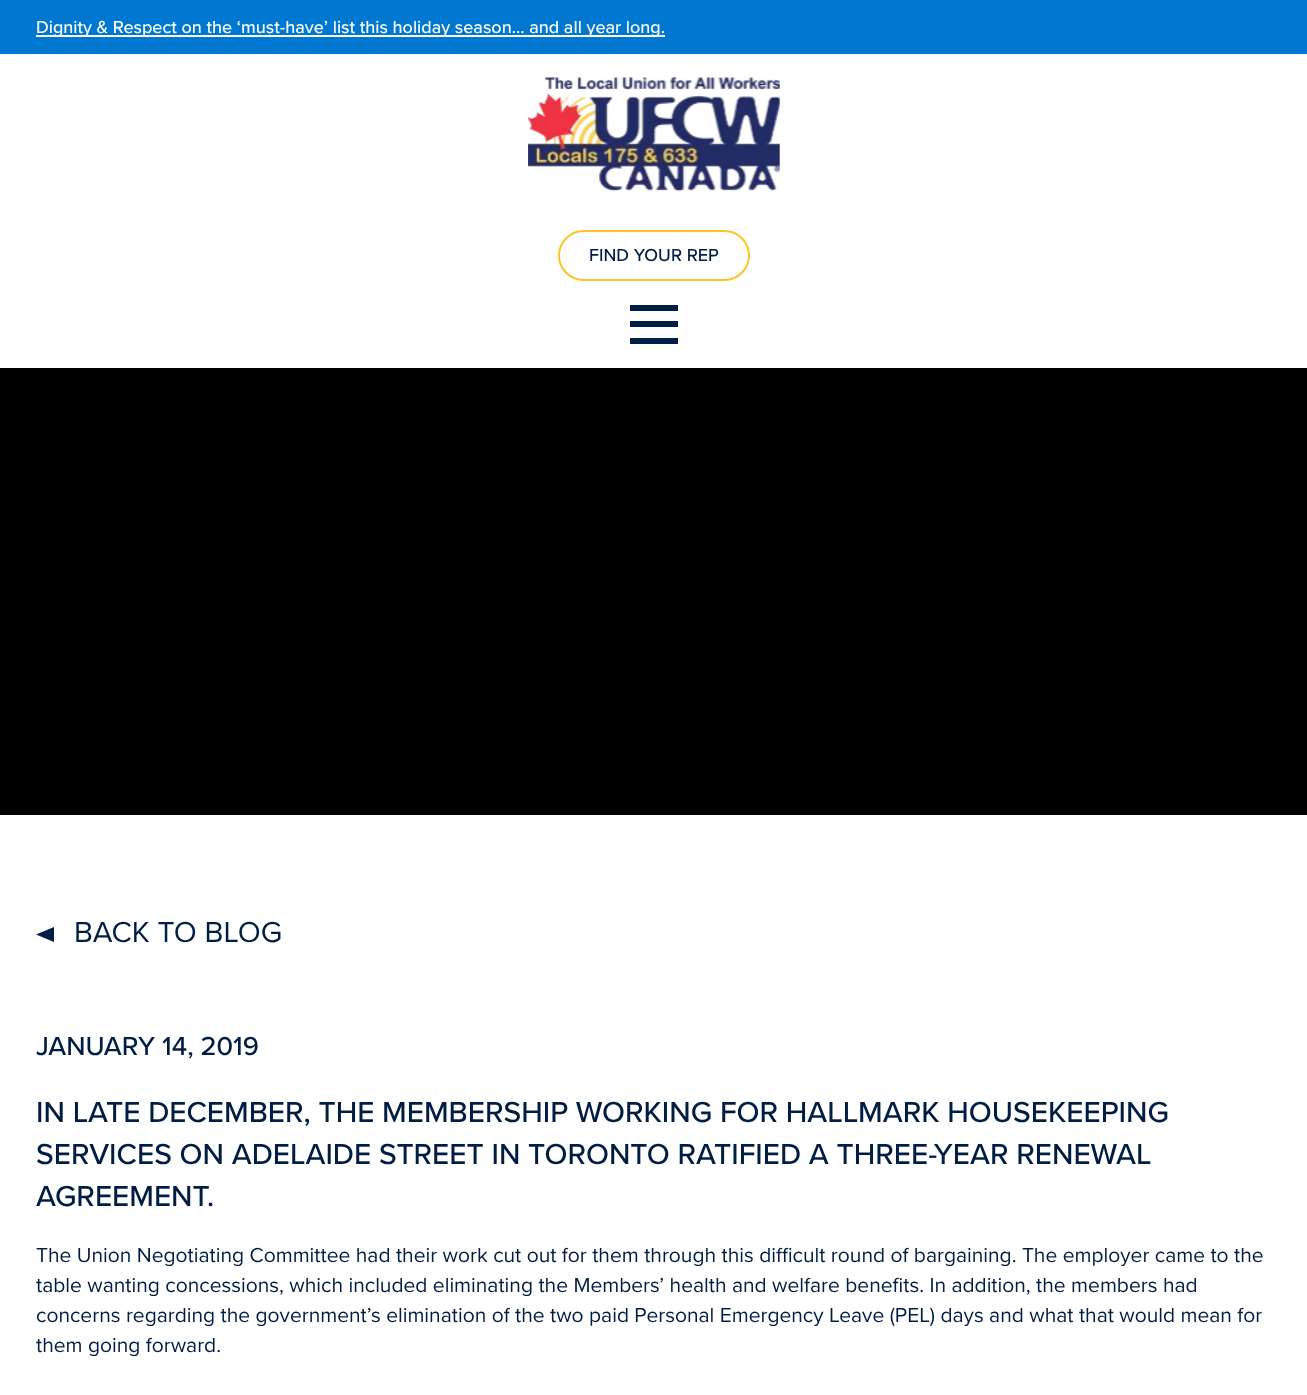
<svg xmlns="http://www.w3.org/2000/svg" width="1307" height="1395">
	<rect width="100%" height="100%" fill="#FFFFFF" />
	<rect x="0" y="0" width="1307" height="54" fill="#0077D0" />
	<rect x="36" y="35" width="629" height="2" fill="#FFFFFF" />
	<text x="36" y="33" font-family="Proxima Nova" font-size="18" font-weight="500" fill="#FFFFFF">Dignity &amp; Respect on the ‘must-have’ list this holiday season… and all year long.</text>
	<rect x="0" y="368" width="1307" height="447" fill="#000000" />
	<rect x="6" y="66" width="1296" height="302" fill="#000000" fill-opacity="0.1" filter="blur(4.5px)" />
	<rect x="5" y="74" width="1299" height="304" fill="#000000" fill-opacity="0.1" filter="blur(11px)" />
	<rect x="0" y="58" width="1307" height="310" fill="#FFFFFF" />
	<image x="528" y="77" width="252" height="115" href="assets/img1.png" />
	<rect x="559" y="231" width="190" height="49" rx="24.5" fill="none" stroke="#FEC325" stroke-width="2" />
	<text x="589" y="261" font-family="Proxima Nova" font-size="18" font-weight="500" fill="#001E43">FIND YOUR REP</text>
	<rect x="630" y="305" width="48" height="6" fill="#001E43" />
	<rect x="630" y="321" width="48" height="6" fill="#001E43" />
	<rect x="630" y="338" width="48" height="6" fill="#001E43" />
	<path d="M54 927V942L36 934.5Z" fill="#001E43" />
	<text x="74" y="942" font-family="Proxima Nova" font-size="30" fill="#001E43">BACK TO BLOG</text>
	<text x="36" y="1055" font-family="Proxima Nova" font-size="27" font-weight="500" fill="#001E43">JANUARY 14, 2019</text>
	<g font-family="Proxima Nova" font-size="30" font-weight="500" fill="#001E43">
		<text x="36" y="1122">IN LATE DECEMBER, THE MEMBERSHIP WORKING FOR HALLMARK HOUSEKEEPING</text>
		<text x="36" y="1164">SERVICES ON ADELAIDE STREET IN TORONTO RATIFIED A THREE-YEAR RENEWAL</text>
		<text x="36" y="1206">AGREEMENT.</text>
	</g>
	<g font-family="Proxima Nova" font-size="21" fill="#001E43">
		<text x="36" y="1262">The Union Negotiating Committee had their work cut out for them through this difficult round of bargaining. The employer came to the</text>
		<text x="36" y="1292">table wanting concessions, which included eliminating the Members’ health and welfare benefits. In addition, the members had</text>
		<text x="36" y="1322">concerns regarding the government’s elimination of the two paid Personal Emergency Leave (PEL) days and what that would mean for</text>
		<text x="36" y="1352">them going forward.</text>
	</g>
</svg>
